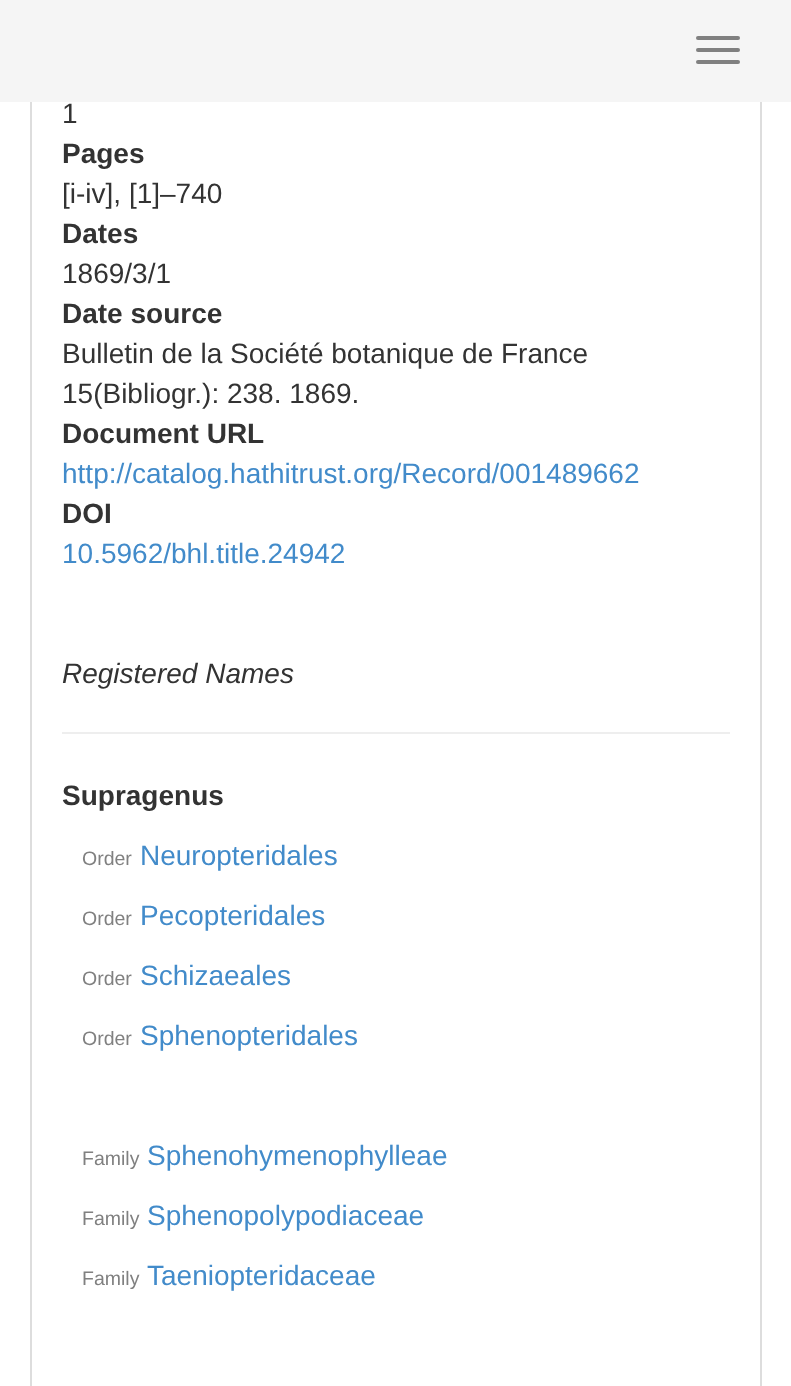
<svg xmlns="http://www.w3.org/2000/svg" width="791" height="1386">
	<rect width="100%" height="100%" fill="#FFFFFF" />
	<rect x="31" y="-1" width="730" height="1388" fill="none" stroke="#DDDDDD" stroke-width="2" />
	<rect x="0" y="0" width="791" height="102" fill="#F5F5F5" />
	<rect x="696" y="36" width="44" height="4" rx="2" fill="#808080" />
	<rect x="696" y="48" width="44" height="4" rx="2" fill="#808080" />
	<rect x="696" y="60" width="44" height="4" rx="2" fill="#808080" />
	<text x="62" y="123" font-family="Liberation Sans" font-size="28" fill="#333333">1</text>
	<text x="62" y="163" font-family="Liberation Sans" font-size="28" font-weight="700" fill="#333333">Pages</text>
	<text x="62" y="203" font-family="Liberation Sans" font-size="28" fill="#333333">[i-iv], [1]–740</text>
	<text x="62" y="243" font-family="Liberation Sans" font-size="28" font-weight="700" fill="#333333">Dates</text>
	<text x="62" y="283" font-family="Liberation Sans" font-size="28" fill="#333333">1869/3/1</text>
	<text x="62" y="323" font-family="Liberation Sans" font-size="28" font-weight="700" fill="#333333">Date source</text>
	<g font-family="Liberation Sans" font-size="28" fill="#333333">
		<text x="62" y="363">Bulletin de la Société botanique de France</text>
		<text x="62" y="403">15(Bibliogr.): 238. 1869.</text>
	</g>
	<text x="62" y="443" font-family="Liberation Sans" font-size="28" font-weight="700" fill="#333333">Document URL</text>
	<text x="62" y="483" font-family="Liberation Sans" font-size="28" fill="#428BCA">http://catalog.hathitrust.org/Record/001489662</text>
	<text x="62" y="523" font-family="Liberation Sans" font-size="28" font-weight="700" fill="#333333">DOI</text>
	<text x="62" y="563" font-family="Liberation Sans" font-size="28" fill="#428BCA">10.5962/bhl.title.24942</text>
	<text x="62" y="683" font-family="Liberation Sans" font-size="28" font-style="italic" fill="#333333">Registered Names</text>
	<rect x="62" y="732" width="668" height="2" fill="#EEEEEE" />
	<text x="62" y="805" font-family="Liberation Sans" font-size="28" font-weight="700" fill="#333333">Supragenus</text>
	<text x="82" y="865" font-family="Liberation Sans" font-size="19.5" fill="#808080">Order</text>
	<text x="140" y="865" font-family="Liberation Sans" font-size="28" fill="#428BCA">Neuropteridales</text>
	<text x="82" y="925" font-family="Liberation Sans" font-size="19.5" fill="#808080">Order</text>
	<text x="140" y="925" font-family="Liberation Sans" font-size="28" fill="#428BCA">Pecopteridales</text>
	<text x="82" y="985" font-family="Liberation Sans" font-size="19.5" fill="#808080">Order</text>
	<text x="140" y="985" font-family="Liberation Sans" font-size="28" fill="#428BCA">Schizaeales</text>
	<text x="82" y="1045" font-family="Liberation Sans" font-size="19.5" fill="#808080">Order</text>
	<text x="140" y="1045" font-family="Liberation Sans" font-size="28" fill="#428BCA">Sphenopteridales</text>
	<text x="82" y="1165" font-family="Liberation Sans" font-size="19.5" fill="#808080">Family</text>
	<text x="147" y="1165" font-family="Liberation Sans" font-size="28" fill="#428BCA">Sphenohymenophylleae</text>
	<text x="82" y="1225" font-family="Liberation Sans" font-size="19.5" fill="#808080">Family</text>
	<text x="147" y="1225" font-family="Liberation Sans" font-size="28" fill="#428BCA">Sphenopolypodiaceae</text>
	<text x="82" y="1285" font-family="Liberation Sans" font-size="19.5" fill="#808080">Family</text>
	<text x="147" y="1285" font-family="Liberation Sans" font-size="28" fill="#428BCA">Taeniopteridaceae</text>
</svg>
